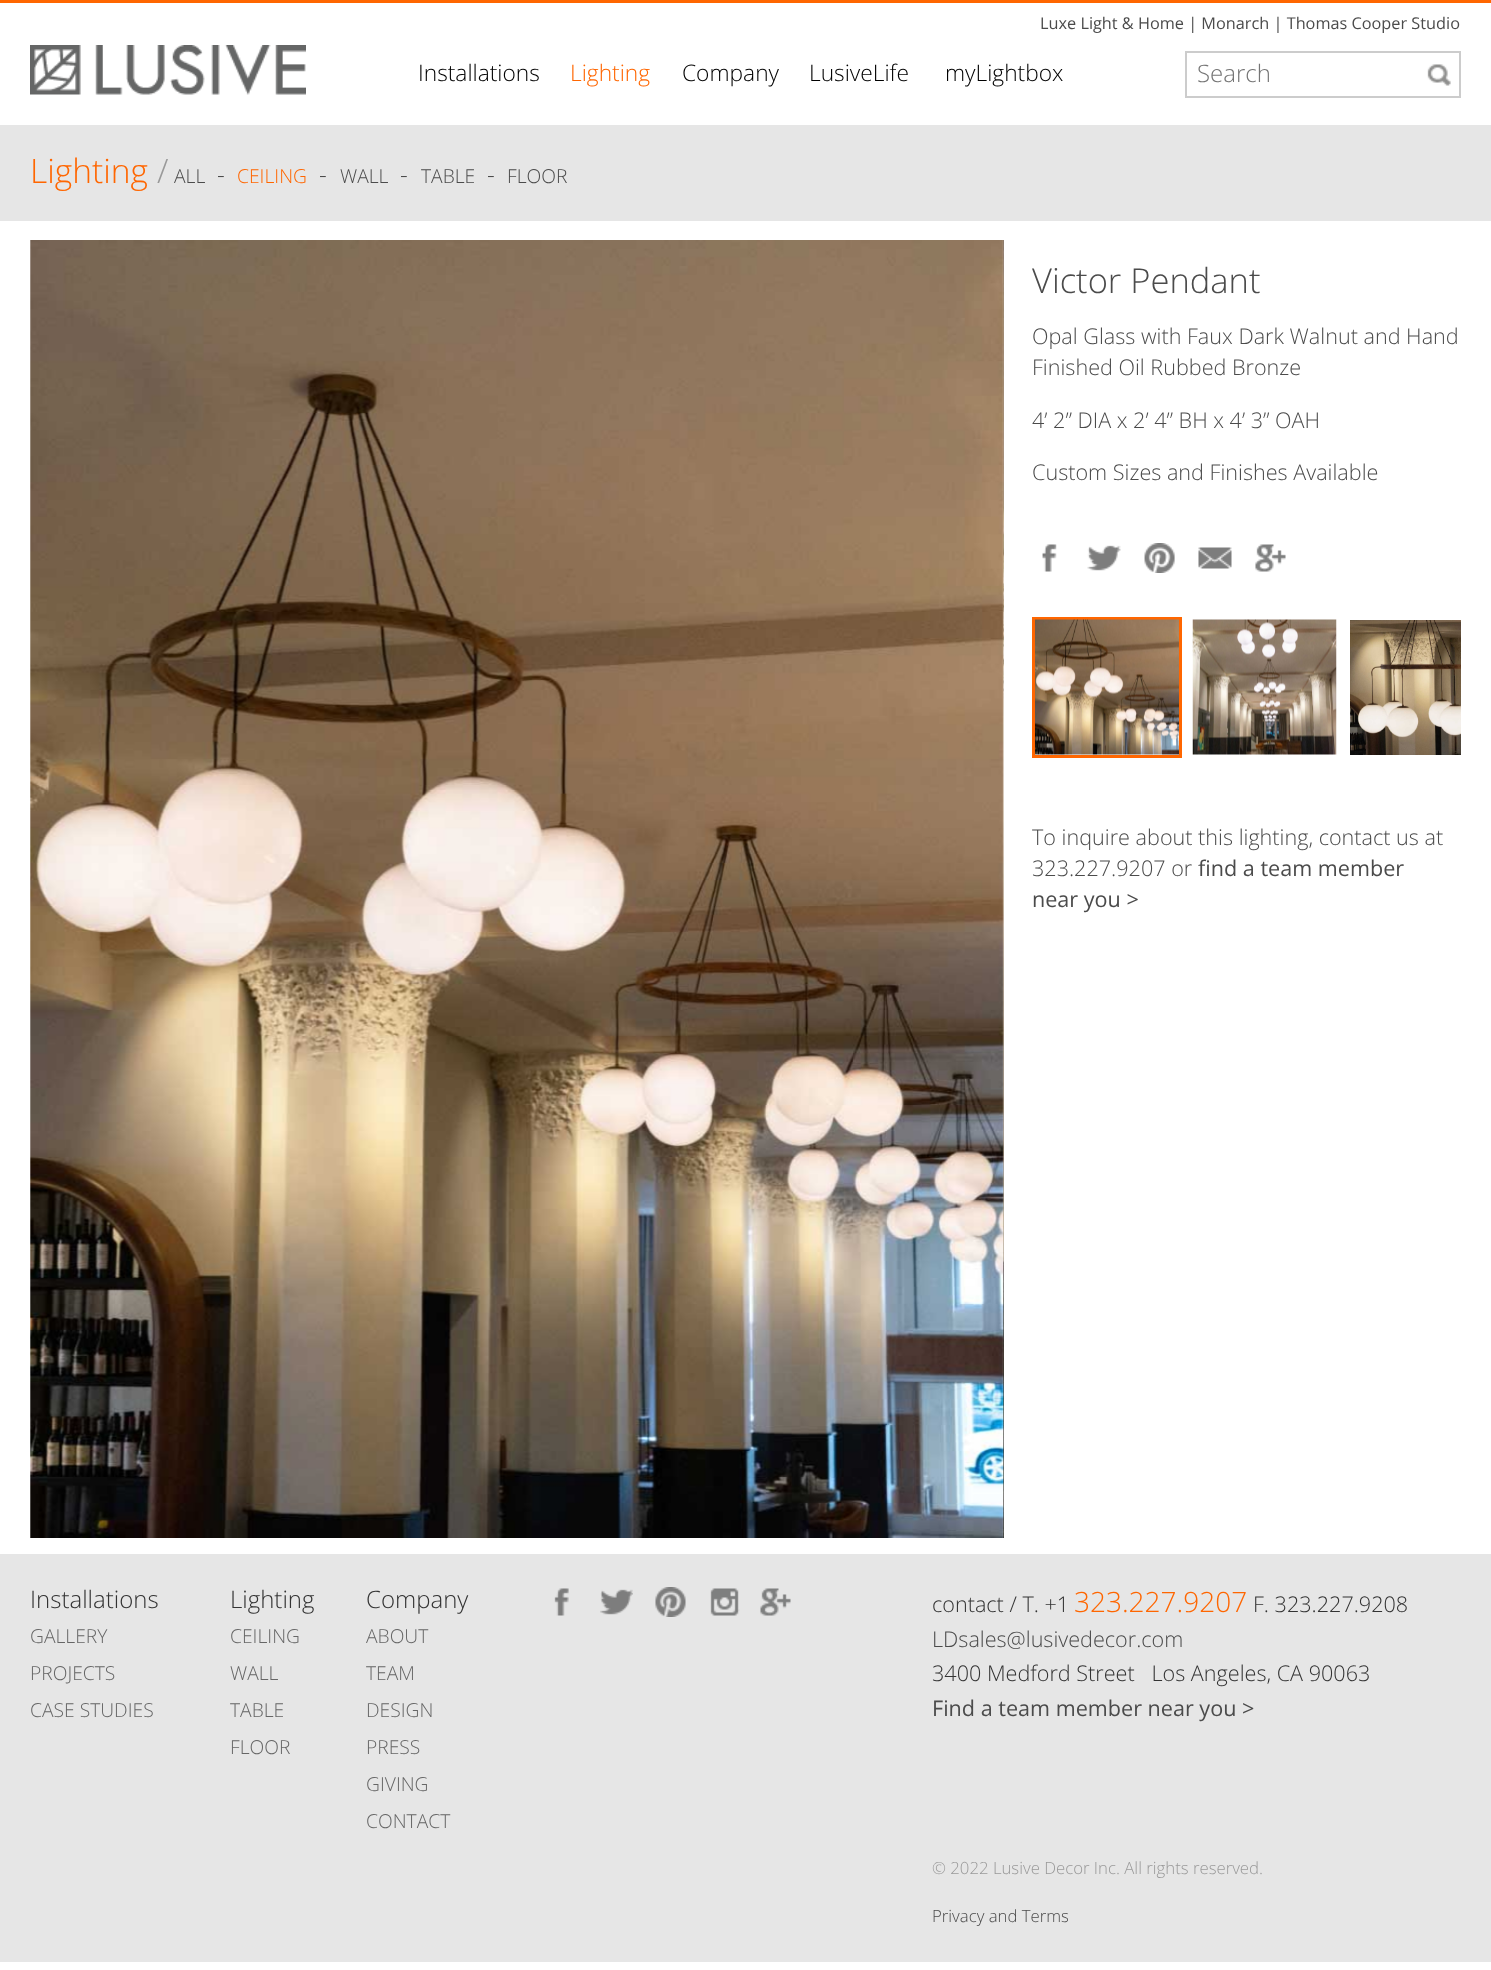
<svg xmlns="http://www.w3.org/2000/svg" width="1491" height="1970">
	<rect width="100%" height="100%" fill="#FFFFFF" />
	<rect x="0" y="0" width="1491" height="3" fill="#FF6600" />
	<text x="1040" y="29" font-family="Open Sans" font-size="16.3" fill="#4B4B4B">Luxe Light &amp; Home | Monarch | Thomas Cooper Studio</text>
	<image x="30" y="45" width="276" height="50" href="assets/img1.png" />
	<text x="418" y="81" font-family="Open Sans" font-size="22.75" font-weight="300" fill="#000000">Installations</text>
	<text x="570" y="81" font-family="Open Sans" font-size="22.75" font-weight="300" fill="#FF6600">Lighting</text>
	<g font-family="Open Sans" font-size="22.75" font-weight="300" fill="#000000">
		<text x="682" y="81">Company</text>
		<text x="809" y="81">LusiveLife</text>
		<text x="945" y="81">myLightbox</text>
	</g>
	<image x="1427" y="64" width="24" height="22" href="assets/img2.png" />
	<rect x="1186" y="52" width="274" height="45" fill="none" stroke="#CCCCCC" stroke-width="2" />
	<text x="1197" y="82" font-family="Open Sans" font-size="24" font-weight="300" fill="#757575">Search</text>
	<rect x="0" y="125" width="1491" height="96" fill="#E6E6E6" />
	<text x="30" y="183" font-family="Open Sans" font-size="33.5" font-weight="300" fill="#FF6600">Lighting</text>
	<text x="157" y="183" font-family="Open Sans" font-size="33.5" font-weight="300" fill="#999999">/</text>
	<text x="174" y="183" font-family="Open Sans" font-size="19.25" font-weight="300" fill="#4B4B4B">ALL</text>
	<text x="217" y="183" font-family="Open Sans" font-size="24" font-weight="300" fill="#4B4B4B">-</text>
	<text x="237" y="183" font-family="Open Sans" font-size="19.25" font-weight="300" fill="#FF6600">CEILING</text>
	<text x="319" y="183" font-family="Open Sans" font-size="24" font-weight="300" fill="#4B4B4B">-</text>
	<text x="340" y="183" font-family="Open Sans" font-size="19.25" font-weight="300" fill="#4B4B4B">WALL</text>
	<text x="400" y="183" font-family="Open Sans" font-size="24" font-weight="300" fill="#4B4B4B">-</text>
	<text x="421" y="183" font-family="Open Sans" font-size="19.25" font-weight="300" fill="#4B4B4B">TABLE</text>
	<text x="487" y="183" font-family="Open Sans" font-size="24" font-weight="300" fill="#4B4B4B">-</text>
	<text x="507" y="183" font-family="Open Sans" font-size="19.25" font-weight="300" fill="#4B4B4B">FLOOR</text>
	<image x="30" y="240" width="974" height="1298" href="assets/img3.png" />
	<image x="1003" y="240" width="1" height="1298" href="assets/img4.png" />
	<text x="1032" y="293" font-family="Open Sans" font-size="34.5" font-weight="300" fill="#4B4B4B">Victor Pendant</text>
	<g font-family="Open Sans" font-size="21.6" font-weight="300" fill="#4B4B4B">
		<text x="1032" y="344">Opal Glass with Faux Dark Walnut and Hand</text>
		<text x="1032" y="375">Finished Oil Rubbed Bronze</text>
		<text x="1032" y="428">4’ 2” DIA x 2’ 4” BH x 4’ 3” OAH</text>
		<text x="1032" y="480">Custom Sizes and Finishes Available</text>
	</g>
	<image x="1042" y="544" width="15" height="28" href="assets/img5.png" />
	<image x="1087" y="545" width="34" height="26" href="assets/img6.png" />
	<image x="1144" y="543" width="31" height="30" href="assets/img7.png" />
	<image x="1198" y="547" width="34" height="22" href="assets/img8.png" />
	<image x="1255" y="544" width="31" height="28" href="assets/img9.png" />
	<rect x="1033.5" y="618.5" width="147" height="138" fill="none" stroke="#FF6600" stroke-width="3" />
	<image x="1035" y="619" width="144" height="136" href="assets/img10.png" />
	<image x="1192" y="619" width="145" height="136" href="assets/img11.png" />
	<image x="1350" y="620" width="111" height="135" href="assets/img12.png" />
	<g font-family="Open Sans" font-size="21.6" font-weight="300" fill="#4B4B4B">
		<text x="1032" y="845">To inquire about this lighting, contact us at</text>
		<text x="1032" y="876">323.227.9207 or</text>
	</g>
	<g font-family="Open Sans" font-size="21.6" fill="#4B4B4B">
		<text x="1198" y="876">find a team member</text>
		<text x="1032" y="907">near you &gt;</text>
	</g>
	<rect x="0" y="1554" width="1491" height="408" fill="#E6E6E6" />
	<text x="30" y="1608" font-family="Open Sans" font-size="24" font-weight="300" fill="#333333">Installations</text>
	<g font-family="Open Sans" font-size="19.25" font-weight="300" fill="#666666">
		<text x="30" y="1643">GALLERY</text>
		<text x="30" y="1680">PROJECTS</text>
		<text x="30" y="1717">CASE STUDIES</text>
	</g>
	<text x="230" y="1608" font-family="Open Sans" font-size="24" font-weight="300" fill="#333333">Lighting</text>
	<g font-family="Open Sans" font-size="19.25" font-weight="300" fill="#666666">
		<text x="230" y="1643">CEILING</text>
		<text x="230" y="1680">WALL</text>
		<text x="230" y="1717">TABLE</text>
		<text x="230" y="1754">FLOOR</text>
	</g>
	<text x="366" y="1608" font-family="Open Sans" font-size="24" font-weight="300" fill="#333333">Company</text>
	<g font-family="Open Sans" font-size="19.25" font-weight="300" fill="#666666">
		<text x="366" y="1643">ABOUT</text>
		<text x="366" y="1680">TEAM</text>
		<text x="366" y="1717">DESIGN</text>
		<text x="366" y="1754">PRESS</text>
		<text x="366" y="1791">GIVING</text>
		<text x="366" y="1828">CONTACT</text>
	</g>
	<image x="554" y="1588" width="15" height="28" href="assets/img13.png" />
	<image x="600" y="1589" width="33" height="26" href="assets/img14.png" />
	<image x="655" y="1587" width="31" height="30" href="assets/img15.png" />
	<image x="710" y="1588" width="30" height="28" href="assets/img16.png" />
	<image x="760" y="1588" width="31" height="28" href="assets/img17.png" />
	<text x="932" y="1612" font-family="Open Sans" font-size="21.6" font-weight="300" fill="#333333">contact / T. +1</text>
	<text x="1074" y="1612" font-family="Open Sans" font-size="28" font-weight="300" fill="#FF6600">323.227.9207</text>
	<text x="1253" y="1612" font-family="Open Sans" font-size="21.6" font-weight="300" fill="#333333">F. 323.227.9208</text>
	<text x="932" y="1647" font-family="Open Sans" font-size="21.6" font-weight="300" fill="#4B4B4B">LDsales@lusivedecor.com</text>
	<text x="932" y="1681" font-family="Open Sans" font-size="21.6" font-weight="300" fill="#333333" xml:space="preserve">3400 Medford Street   Los Angeles, CA 90063</text>
	<text x="932" y="1716" font-family="Open Sans" font-size="21.6" fill="#4B4B4B">Find a team member near you &gt;</text>
	<text x="932" y="1874" font-family="Open Sans" font-size="16.75" font-weight="300" fill="#999999">© 2022 Lusive Decor Inc. All rights reserved.</text>
	<text x="932" y="1922" font-family="Open Sans" font-size="16.75" font-weight="300" fill="#4B4B4B">Privacy and Terms</text>
</svg>
